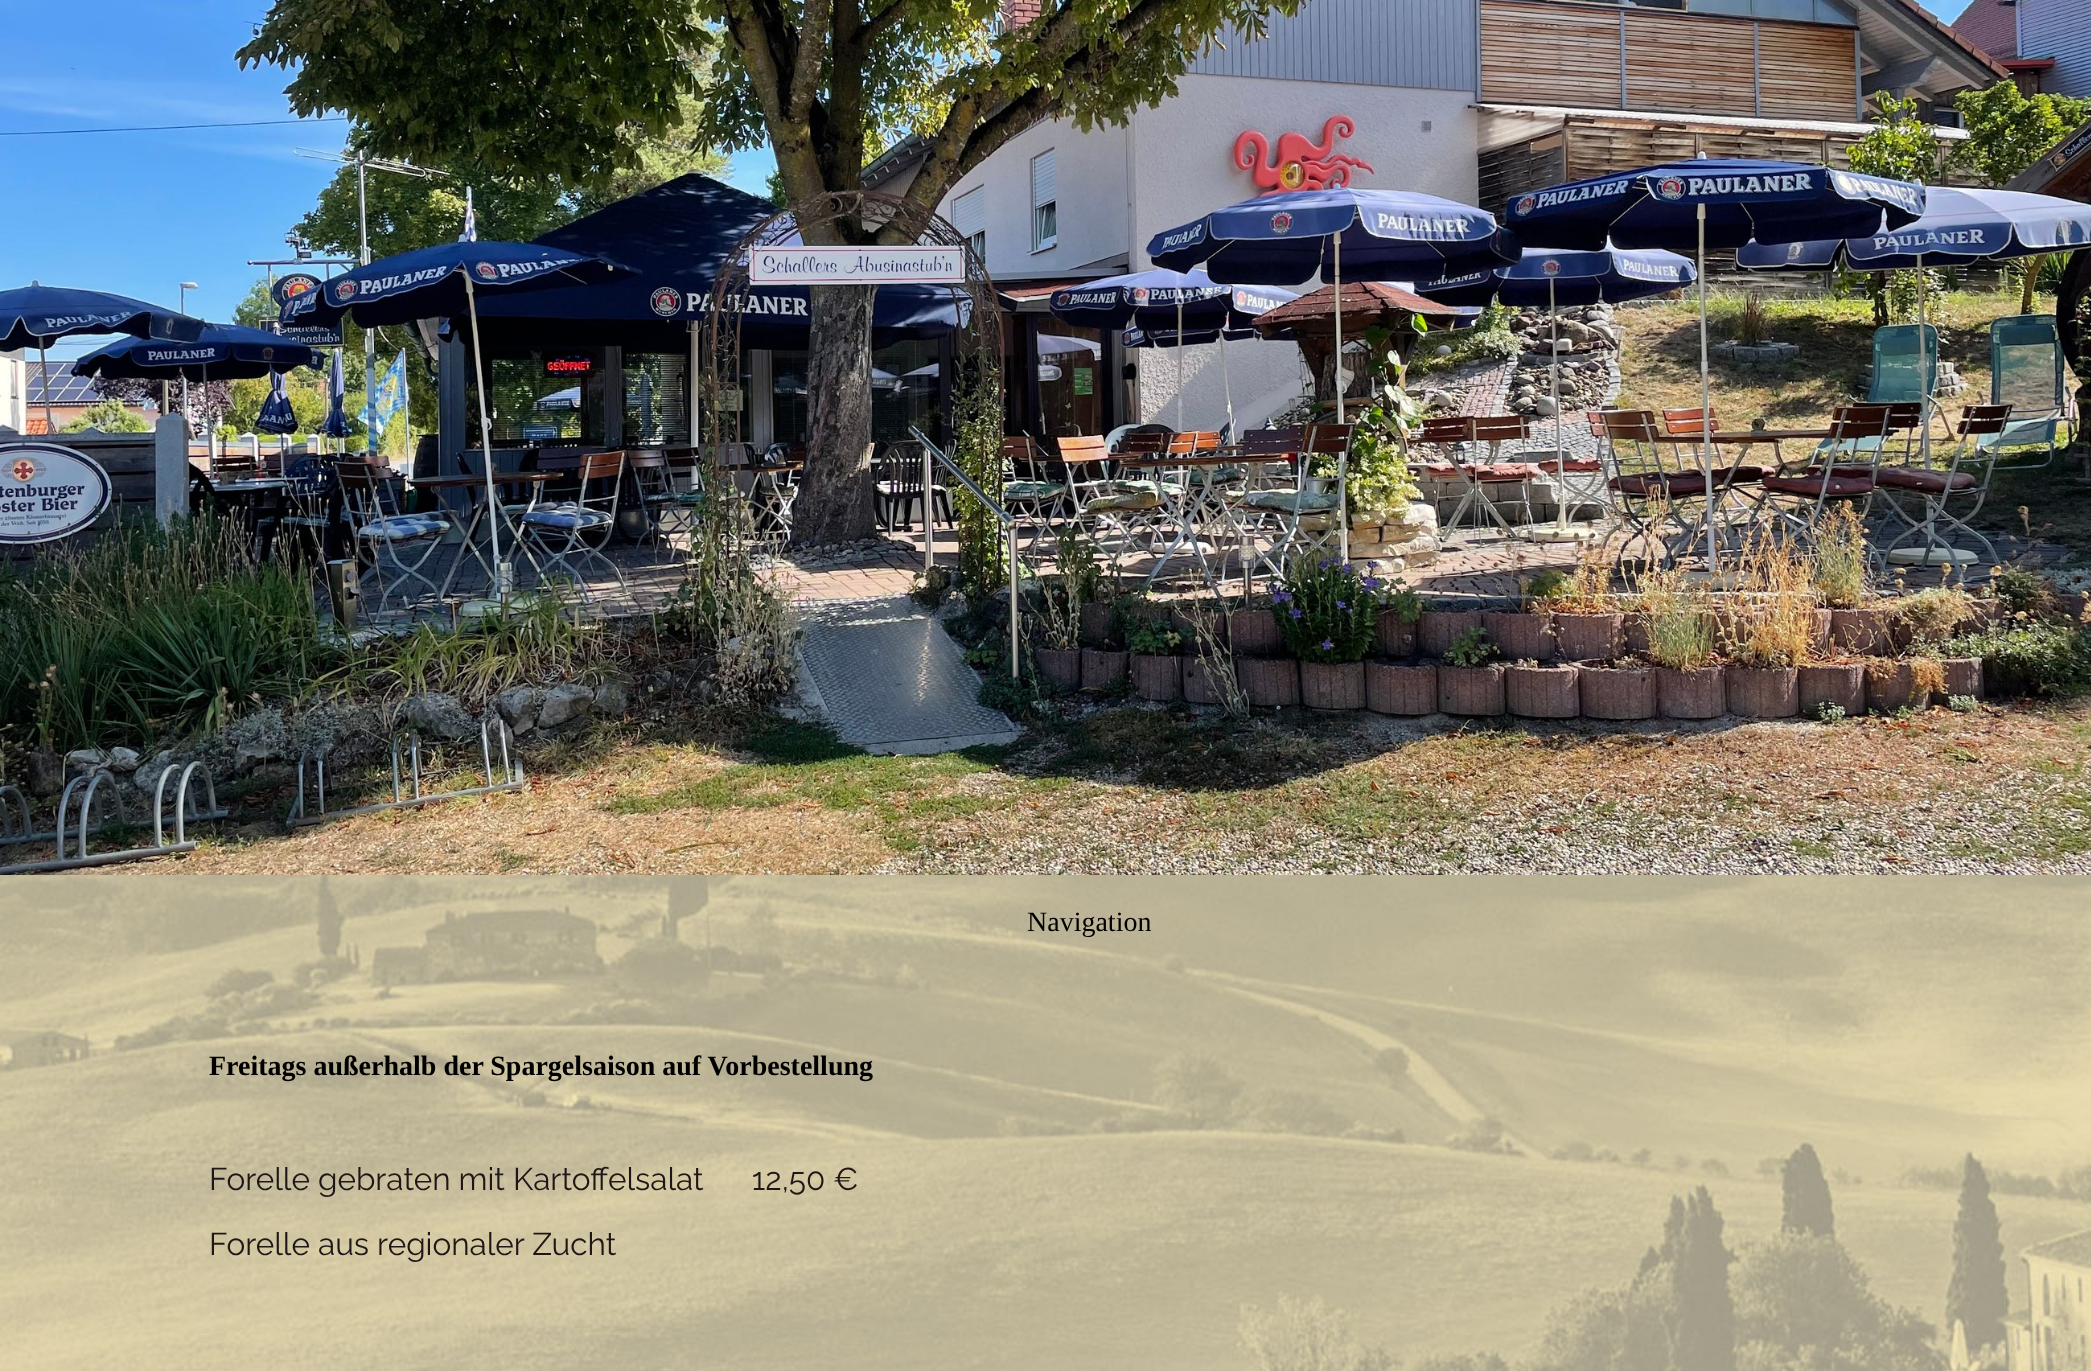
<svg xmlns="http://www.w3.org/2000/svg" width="2091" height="1371">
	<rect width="100%" height="100%" fill="#FFFFFF" />
	<image x="0" y="0" width="2091" height="875" href="assets/img1.png" />
	<text x="995" y="39" font-family="Liberation Serif" font-size="28" fill="#4C4B36">Untertitel</text>
	<image x="0" y="875" width="2091" height="496" href="assets/img2.png" />
	<text x="1027" y="931" font-family="Liberation Serif" font-size="28" fill="#000000">Navigation</text>
	<text x="209" y="1075" font-family="Liberation Serif" font-size="28" font-weight="700" fill="#000000">Freitags außerhalb der Spargelsaison auf Vorbestellung</text>
	<g font-family="Raleway" font-size="31.5" fill="#1E1717">
		<text x="209" y="1190" xml:space="preserve">Forelle gebraten mit Kartoffelsalat      12,50 €</text>
		<text x="209" y="1255">Forelle aus regionaler Zucht</text>
	</g>
</svg>
